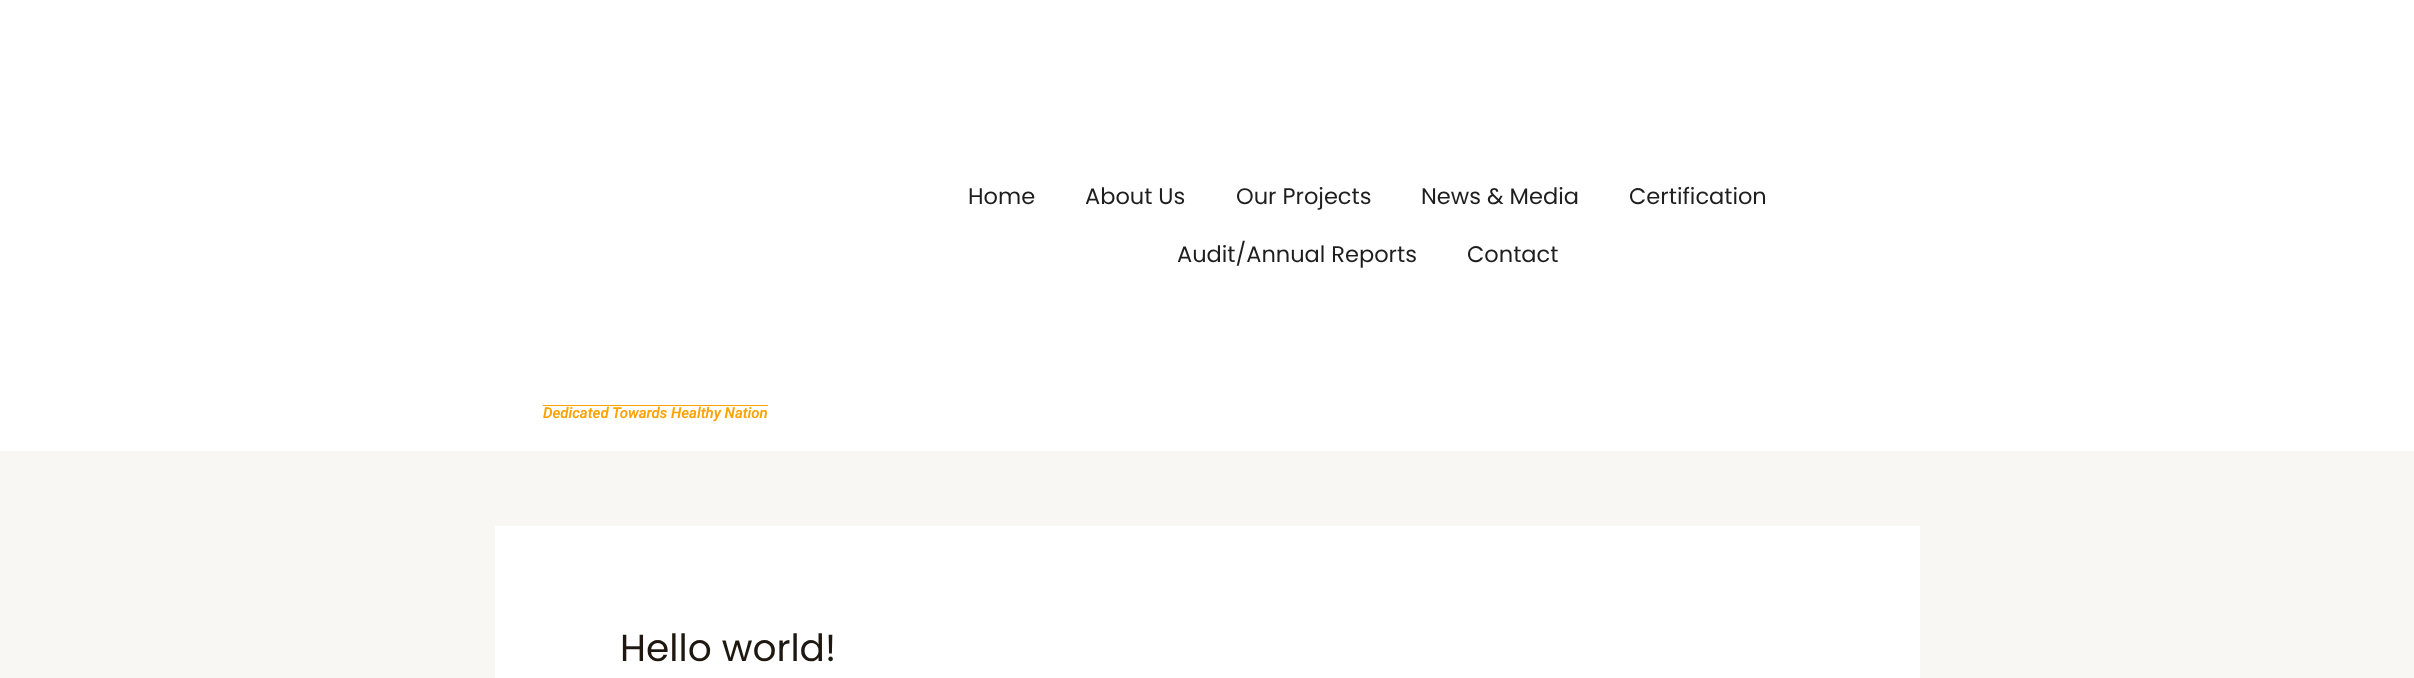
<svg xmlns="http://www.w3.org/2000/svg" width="2414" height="678">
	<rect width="100%" height="100%" fill="#F8F7F3" />
	<rect x="0" y="0" width="2414" height="451" fill="#FFFFFF" />
	<g font-family="Poppins" font-size="22.5" fill="#1E1E1E">
		<text x="968" y="204">Home</text>
		<text x="1085" y="204">About Us</text>
		<text x="1236" y="204">Our Projects</text>
		<text x="1421" y="204">News &amp; Media</text>
		<text x="1629" y="204">Certification</text>
		<text x="1177" y="262">Audit/Annual Reports</text>
		<text x="1467" y="262">Contact</text>
	</g>
	<text x="543" y="418" font-family="Roboto" font-size="15" font-weight="600" font-style="italic" fill="#FDA200">Dedicated Towards Healthy Nation</text>
	<rect x="543" y="405" width="225" height="1" fill="#FDA200" />
	<rect x="495" y="526" width="1425" height="152" fill="#FFFFFF" />
	<text x="620" y="661" font-family="Poppins" font-size="37.5" fill="#1E1810">Hello world!</text>
</svg>
